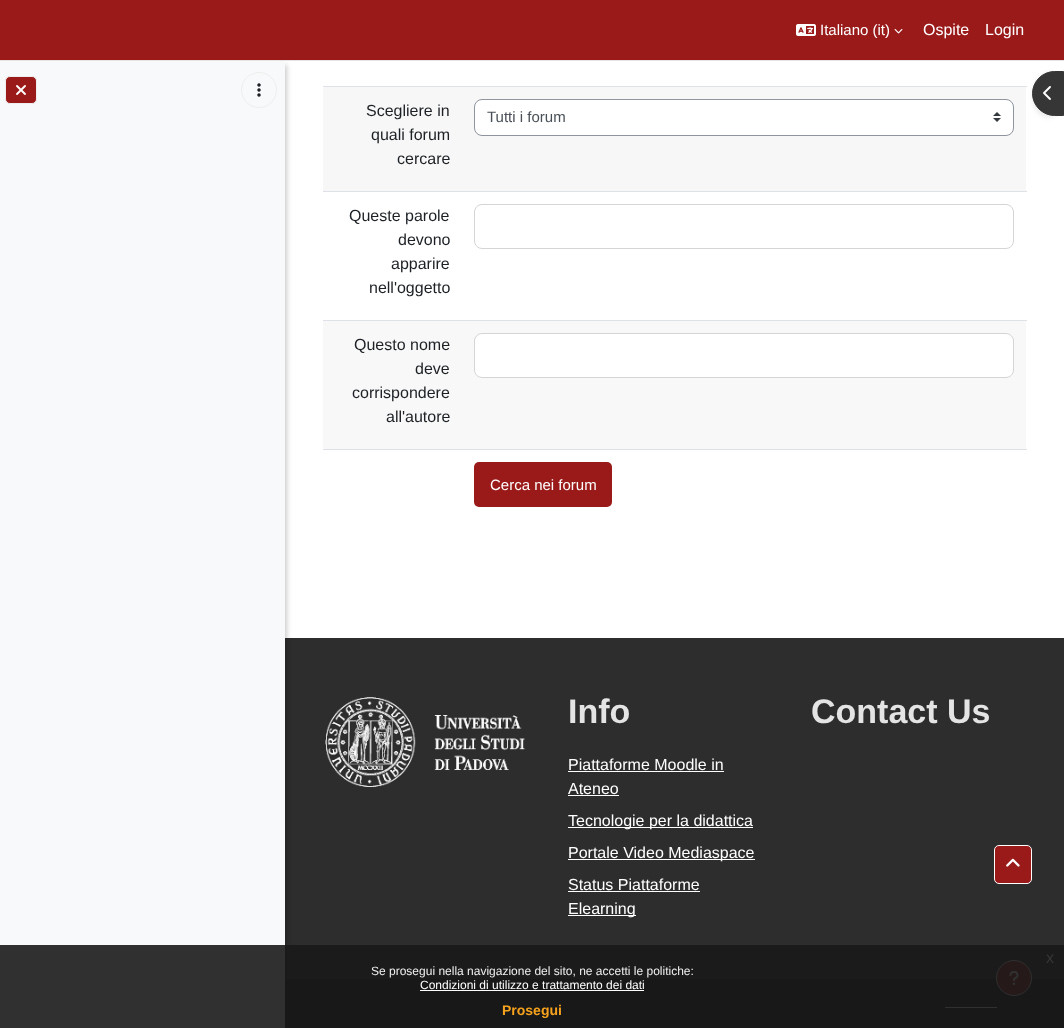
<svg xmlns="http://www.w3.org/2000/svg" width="1064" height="1028">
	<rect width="100%" height="100%" fill="#FFFFFF" />
	<rect x="285" y="638" width="779" height="341" fill="#2D2D2D" />
	<rect x="285" y="979" width="779" height="49" fill="#111111" />
	<rect x="2" y="65" width="285" height="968" fill="#000000" fill-opacity="0.2" filter="blur(2.5px)" />
	<rect x="0" y="0" width="1064" height="60" fill="#9A1919" />
	<rect x="0" y="60" width="1064" height="1" fill="#E8E3E3" />
	<image x="796" y="24" width="20" height="12" href="assets/img1.png" />
	<text x="820" y="35" font-family="Liberation Sans" font-size="15" fill="#FFFFFF">Italiano (it)</text>
	<image x="894" y="29" width="9" height="5" href="assets/img2.png" />
	<g font-family="Liberation Sans" font-size="16" fill="#FFFFFF">
		<text x="923" y="35">Ospite</text>
		<text x="985" y="35">Login</text>
	</g>
	<rect x="0" y="61" width="285" height="967" fill="#F8F9FA" />
	<rect x="5.5" y="76.5" width="31" height="27" rx="4.5" fill="#9A1919" stroke="#EEEEEE" />
	<image x="16" y="85" width="10" height="10" href="assets/img3.png" />
	<circle cx="259" cy="90" r="17.5" fill="none" stroke="#EEEEEE" />
	<image x="257" y="83" width="4" height="14" href="assets/img4.png" />
	<rect x="323" y="87" width="703" height="104" fill="#F7F7F7" />
	<rect x="323" y="86" width="704" height="1" fill="#DEE2E6" />
	<rect x="1032" y="73" width="32" height="45" rx="23" fill="#000000" fill-opacity="0.07" filter="blur(2px)" />
	<path d="M1054.5 71.5H1063.5V115.5H1054.5C1042.5 115.5 1032.5 105.5 1032.5 93.5C1032.5 81.5 1042.5 71.5 1054.5 71.5Z" fill="#363636" stroke="#363636" />
	<image x="1043" y="86" width="8" height="14" href="assets/img5.png" />
	<g font-family="Liberation Sans" font-size="16" fill="#1D2125">
		<text x="366" y="116">Scegliere in</text>
		<text x="371" y="140">quali forum</text>
		<text x="397" y="164">cercare</text>
	</g>
	<rect x="475" y="100" width="538" height="35" rx="7" fill="#FFFFFF" />
	<image x="993" y="112" width="8" height="10" href="assets/img6.png" />
	<rect x="474.5" y="99.5" width="539" height="36" rx="7.5" fill="none" stroke="#8F959E" />
	<text x="487" y="122" font-family="Liberation Sans" font-size="15" fill="#495057">Tutti i forum</text>
	<rect x="323" y="191" width="704" height="1" fill="#DEE2E6" />
	<rect x="474.5" y="204.5" width="539" height="44" rx="7.5" fill="none" stroke="#D5D5D5" />
	<g font-family="Liberation Sans" font-size="16" fill="#1D2125">
		<text x="349" y="221">Queste parole</text>
		<text x="398" y="245">devono</text>
		<text x="391" y="269">apparire</text>
		<text x="369" y="293">nell'oggetto</text>
	</g>
	<rect x="323" y="321" width="703" height="128" fill="#F8F8F8" />
	<rect x="323" y="320" width="704" height="1" fill="#DEE2E6" />
	<rect x="474.5" y="333.5" width="539" height="44" rx="7.5" fill="#FFFFFF" stroke="#D5D5D5" />
	<g font-family="Liberation Sans" font-size="16" fill="#1D2125">
		<text x="354" y="350">Questo nome</text>
		<text x="415" y="374">deve</text>
		<text x="352" y="398">corrispondere</text>
		<text x="386" y="422">all'autore</text>
	</g>
	<rect x="323" y="449" width="704" height="1" fill="#DEE2E6" />
	<rect x="474" y="462" width="138" height="45" rx="5" fill="#9A1919" />
	<text x="490" y="490" font-family="Liberation Sans" font-size="15" fill="#FFFFFF">Cerca nei forum</text>
	<image x="325" y="697" width="200" height="90" href="assets/img7.png" />
	<text x="568" y="723" font-family="Liberation Sans" font-size="34" font-weight="700" fill="#E4E4E4">Info</text>
	<text x="568" y="770" font-family="Liberation Sans" font-size="16" fill="#FFFFFF">Piattaforme Moodle in</text>
	<rect x="568" y="771" width="156" height="1" fill="#FFFFFF" />
	<text x="568" y="794" font-family="Liberation Sans" font-size="16" fill="#FFFFFF">Ateneo</text>
	<rect x="568" y="795" width="51" height="1" fill="#FFFFFF" />
	<rect x="568" y="827" width="185" height="1" fill="#FFFFFF" />
	<text x="568" y="826" font-family="Liberation Sans" font-size="16" fill="#FFFFFF">Tecnologie per la didattica</text>
	<rect x="568" y="859" width="187" height="1" fill="#FFFFFF" />
	<g font-family="Liberation Sans" font-size="16" fill="#FFFFFF">
		<text x="568" y="858">Portale Video Mediaspace</text>
		<text x="568" y="890">Status Piattaforme</text>
	</g>
	<rect x="568" y="891" width="132" height="1" fill="#FFFFFF" />
	<rect x="568" y="915" width="68" height="1" fill="#FFFFFF" />
	<text x="568" y="914" font-family="Liberation Sans" font-size="16" fill="#FFFFFF">Elearning</text>
	<text x="811" y="723" font-family="Liberation Sans" font-size="34" font-weight="700" fill="#E4E4E4">Contact Us</text>
	<circle cx="1014" cy="978" r="17.5" fill="#9A1919" stroke="#EEEEEE" />
	<image x="1009" y="971" width="10" height="14" href="assets/img8.png" />
	<rect x="945" y="1007" width="52" height="1" fill="#FFFFFF" />
	<rect x="994.5" y="845.5" width="37" height="38" rx="4.5" fill="#9A1919" stroke="#FFFFFF" />
	<image x="1006" y="858" width="14" height="9" href="assets/img9.png" />
	<rect x="0" y="945" width="1064" height="83" fill="#191919" fill-opacity="0.9" />
	<text x="1046" y="963" font-family="Liberation Sans" font-size="16" fill="#363636">x</text>
	<text x="371" y="975" font-family="Liberation Sans" font-size="12" fill="#EFEFEF">Se prosegui nella navigazione del sito, ne accetti le politiche:</text>
	<text x="420" y="989" font-family="Liberation Sans" font-size="12" fill="#FFFFFF">Condizioni di utilizzo e trattamento dei dati</text>
	<rect x="420" y="990" width="224" height="1" fill="#FFFFFF" />
	<text x="502" y="1015" font-family="Liberation Sans" font-size="14" font-weight="700" fill="#F6A21D">Prosegui</text>
</svg>
